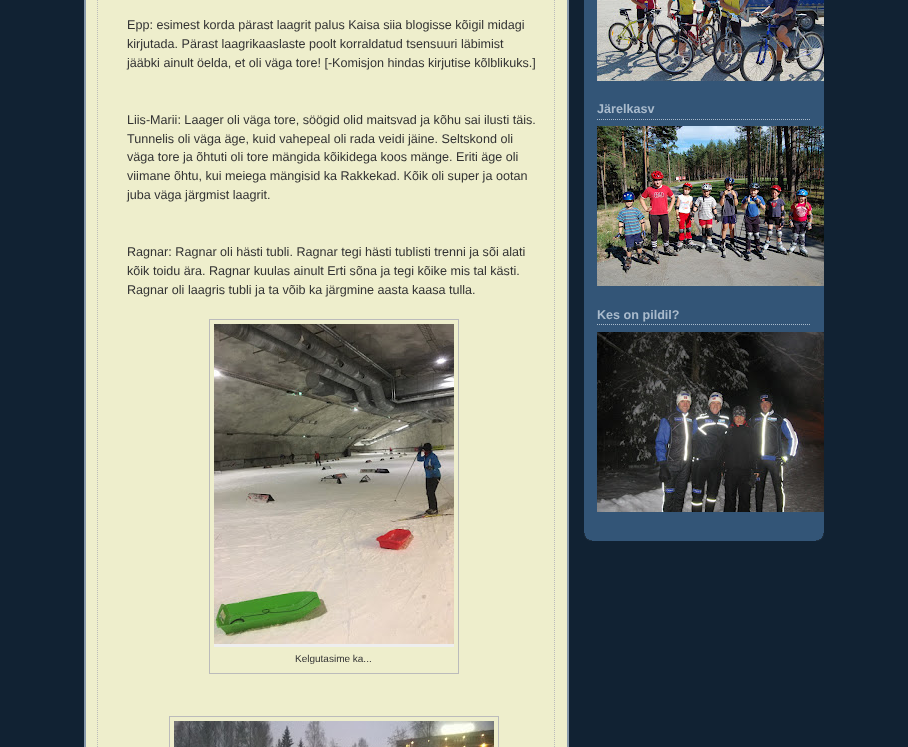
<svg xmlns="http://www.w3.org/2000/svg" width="908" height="747">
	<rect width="100%" height="100%" fill="#112233" />
	<rect x="86" y="0" width="481" height="747" fill="#EEEECC" />
	<image x="84" y="0" width="485" height="747" href="assets/img1.png" />
	<path d="M554.5-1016V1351" fill="none" stroke="#BBBBBB" stroke-dasharray="1 1" />
	<path d="M97.5-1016V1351" fill="none" stroke="#BBBBBB" stroke-dasharray="1 1" />
	<g font-family="Liberation Sans" font-size="12.6" fill="#333333">
		<text x="127" y="29">Epp: esimest korda pärast laagrit palus Kaisa siia blogisse kõigil midagi</text>
		<text x="127" y="48">kirjutada. Pärast laagrikaaslaste poolt korraldatud tsensuuri läbimist</text>
		<text x="127" y="67">jääbki ainult öelda, et oli väga tore! [-Komisjon hindas kirjutise kõlblikuks.]</text>
		<text x="127" y="124">Liis-Marii: Laager oli väga tore, söögid olid maitsvad ja kõhu sai ilusti täis.</text>
		<text x="127" y="143">Tunnelis oli väga äge, kuid vahepeal oli rada veidi jäine. Seltskond oli</text>
		<text x="127" y="161">väga tore ja õhtuti oli tore mängida kõikidega koos mänge. Eriti äge oli</text>
		<text x="127" y="180">viimane õhtu, kui meiega mängisid ka Rakkekad. Kõik oli super ja ootan</text>
		<text x="127" y="199">juba väga järgmist laagrit.</text>
		<text x="127" y="256">Ragnar: Ragnar oli hästi tubli. Ragnar tegi hästi tublisti trenni ja sõi alati</text>
		<text x="127" y="275">kõik toidu ära. Ragnar kuulas ainult Erti sõna ja tegi kõike mis tal kästi.</text>
		<text x="127" y="294">Ragnar oli laagris tubli ja ta võib ka järgmine aasta kaasa tulla.</text>
	</g>
	<rect x="209.5" y="319.5" width="249" height="354" fill="none" stroke="#BBBBBB" />
	<image x="214" y="324" width="240" height="320" href="assets/img2.png" />
	<rect x="214" y="644" width="240" height="3" fill="#EEEEEE" />
	<text x="295" y="662" font-family="Liberation Sans" font-size="10" fill="#333333">Kelgutasime ka...</text>
	<rect x="169.5" y="716.5" width="329" height="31" fill="none" stroke="#BBBBBB" />
	<image x="174" y="721" width="320" height="26" href="assets/img3.png" />
	<rect x="584" y="0" width="240" height="541" fill="#335577" />
	<image x="584" y="533" width="240" height="8" href="assets/img4.png" />
	<image x="597" y="0" width="227" height="81" href="assets/img5.png" />
	<path d="M597 119.5H811" fill="none" stroke="#AABBCC" stroke-dasharray="1 1" />
	<text x="597" y="113" font-family="Liberation Sans" font-size="12.6" font-weight="700" fill="#AABBCC">Järelkasv</text>
	<image x="597" y="126" width="227" height="160" href="assets/img6.png" />
	<path d="M597 324.5H811" fill="none" stroke="#AABBCC" stroke-dasharray="1 1" />
	<text x="597" y="319" font-family="Liberation Sans" font-size="12.6" font-weight="700" fill="#AABBCC">Kes on pildil?</text>
	<image x="597" y="332" width="227" height="180" href="assets/img7.png" />
</svg>
